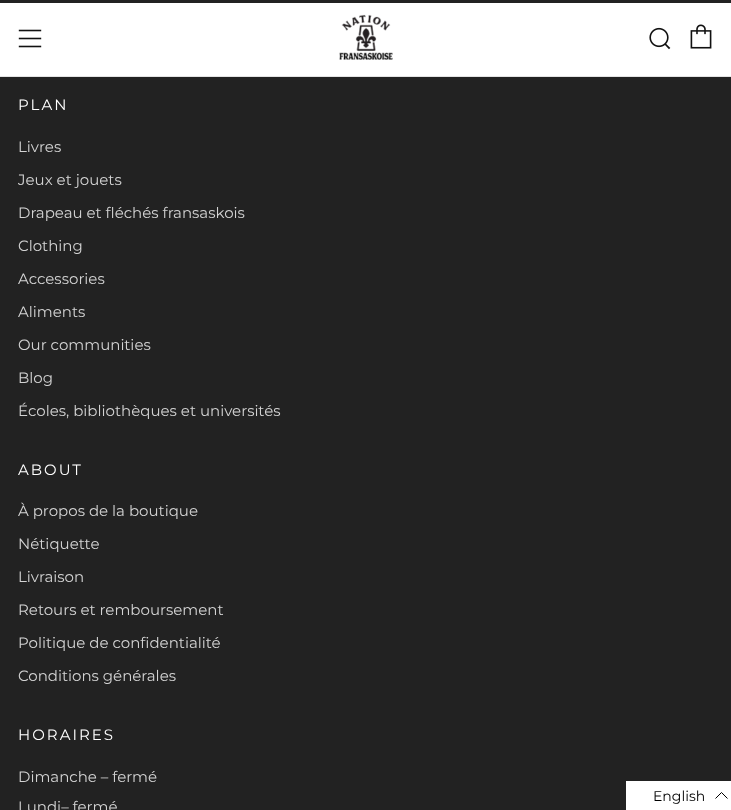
<svg xmlns="http://www.w3.org/2000/svg" width="731" height="810">
	<rect width="100%" height="100%" fill="#222222" />
	<rect x="0" y="3" width="731" height="73" fill="#FFFFFF" />
	<rect x="0" y="76" width="731" height="1" fill="#E4E4E4" />
	<image x="18" y="29" width="24" height="19" href="assets/img1.png" />
	<image x="339" y="14" width="54" height="46" href="assets/img2.png" />
	<image x="649" y="27" width="22" height="23" href="assets/img3.png" />
	<image x="690" y="24" width="22" height="25" href="assets/img4.png" />
	<text x="18" y="110" font-family="Montserrat" font-size="15" letter-spacing="2" fill="#FFFFFF">PLAN</text>
	<g font-family="Montserrat" font-size="15" fill="#D3D3D3">
		<text x="18" y="152">Livres</text>
		<text x="18" y="185">Jeux et jouets</text>
		<text x="18" y="218">Drapeau et fléchés fransaskois</text>
		<text x="18" y="251">Clothing</text>
		<text x="18" y="284">Accessories</text>
		<text x="18" y="317">Aliments</text>
		<text x="18" y="350">Our communities</text>
		<text x="18" y="383">Blog</text>
		<text x="18" y="416">Écoles, bibliothèques et universités</text>
	</g>
	<text x="18" y="475" font-family="Montserrat" font-size="15" letter-spacing="2" fill="#FFFFFF">ABOUT</text>
	<g font-family="Montserrat" font-size="15" fill="#D3D3D3">
		<text x="18" y="516">À propos de la boutique</text>
		<text x="18" y="549">Nétiquette</text>
		<text x="18" y="582">Livraison</text>
		<text x="18" y="615">Retours et remboursement</text>
		<text x="18" y="648">Politique de confidentialité</text>
		<text x="18" y="681">Conditions générales</text>
	</g>
	<text x="18" y="740" font-family="Montserrat" font-size="15" letter-spacing="2" fill="#FFFFFF">HORAIRES</text>
	<g font-family="Montserrat" font-size="15" fill="#D3D3D3">
		<text x="18" y="782">Dimanche – fermé</text>
		<text x="18" y="812">Lundi– fermé</text>
	</g>
	<rect x="626" y="781" width="105" height="29" fill="#FFFFFF" />
	<text x="653" y="801" font-family="Montserrat" font-size="14" fill="#000000">English</text>
	<path d="M727.5 798.5L721.5 792.5L715.5 798.5" fill="none" stroke="#000000" />
</svg>
